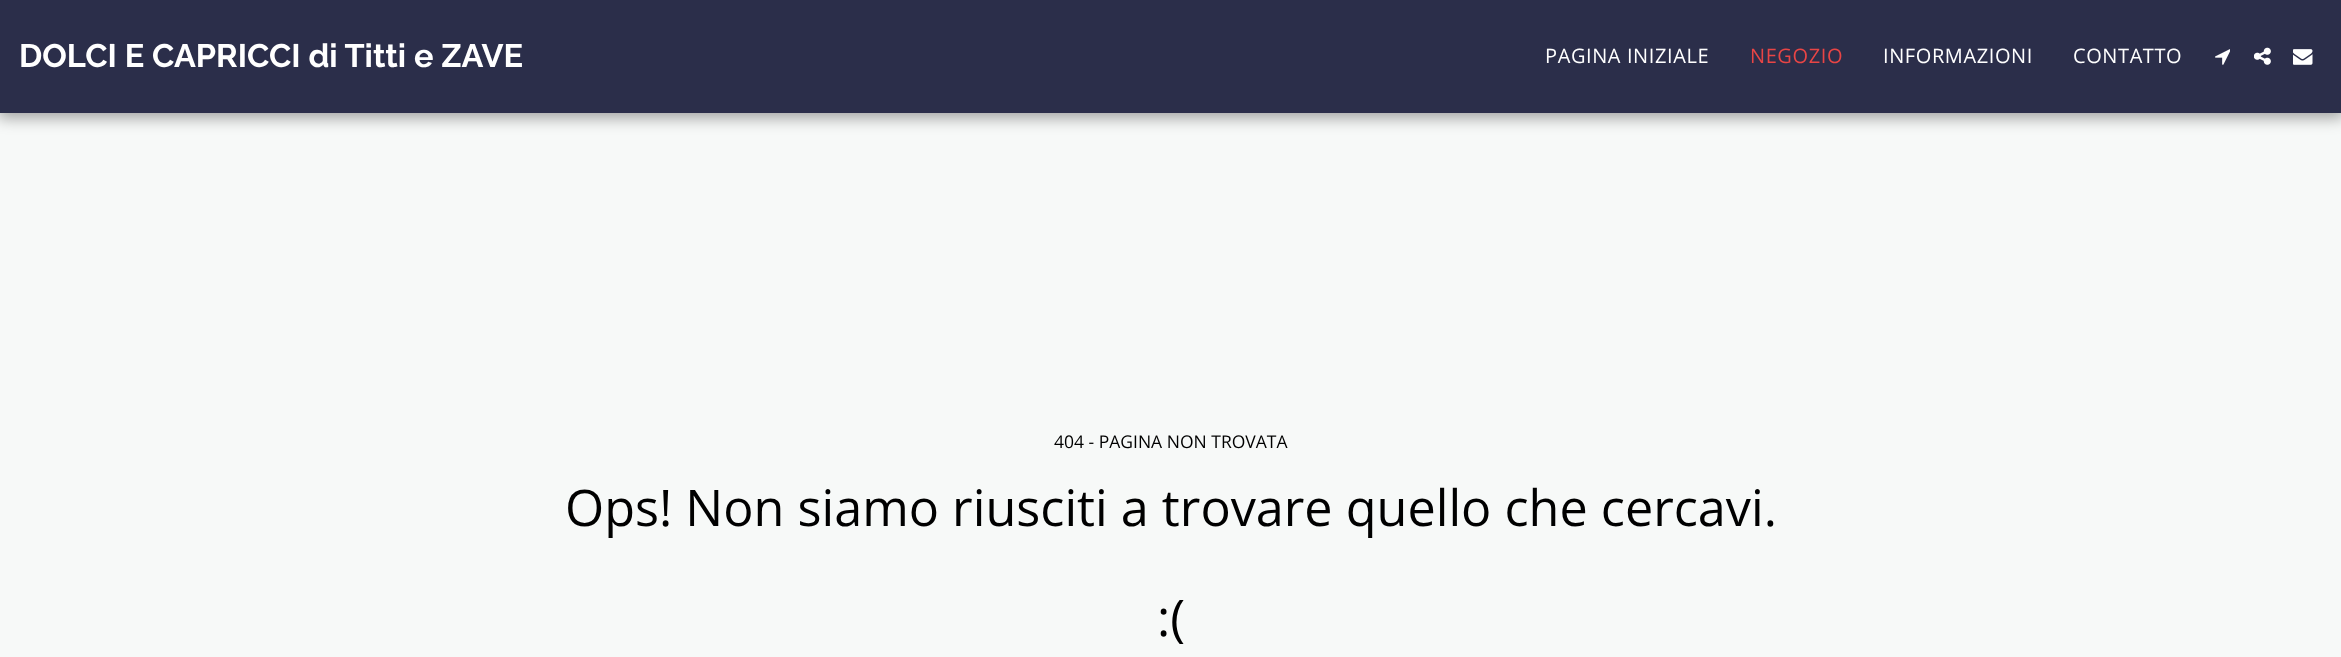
<svg xmlns="http://www.w3.org/2000/svg" width="2341" height="657">
	<rect width="100%" height="100%" fill="#F7F9F8" />
	<rect x="-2" y="0" width="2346" height="118" fill="#000000" fill-opacity="0.35" filter="blur(7.5px)" />
	<rect x="0" y="0" width="2341" height="113" fill="#2B2E4A" />
	<text x="19" y="67" font-family="Raleway" font-size="32.5" font-weight="700" fill="#FFFFFF">DOLCI E CAPRICCI di Titti e ZAVE</text>
	<text x="1545" y="63" font-family="Open Sans" font-size="20" letter-spacing="0.6" fill="#FFFFFF">PAGINA INIZIALE</text>
	<text x="1750" y="63" font-family="Open Sans" font-size="20" letter-spacing="0.6" fill="#E84545">NEGOZIO</text>
	<g font-family="Open Sans" font-size="20" letter-spacing="0.6" fill="#FFFFFF">
		<text x="1883" y="63">INFORMAZIONI</text>
		<text x="2073" y="63">CONTATTO</text>
	</g>
	<image x="2215" y="49" width="15" height="16" href="assets/img1.png" />
	<image x="2254" y="47" width="17" height="18" href="assets/img2.png" />
	<image x="2293" y="49" width="20" height="16" href="assets/img3.png" />
	<text x="1054" y="448" font-family="Open Sans" font-size="17.5" fill="#000000">404 - PAGINA NON TROVATA</text>
	<g font-family="Open Sans" font-size="50.35" fill="#000000">
		<text x="565" y="526">Ops! Non siamo riusciti a trovare quello che cercavi.</text>
		<text x="1157" y="636">:(</text>
	</g>
</svg>
